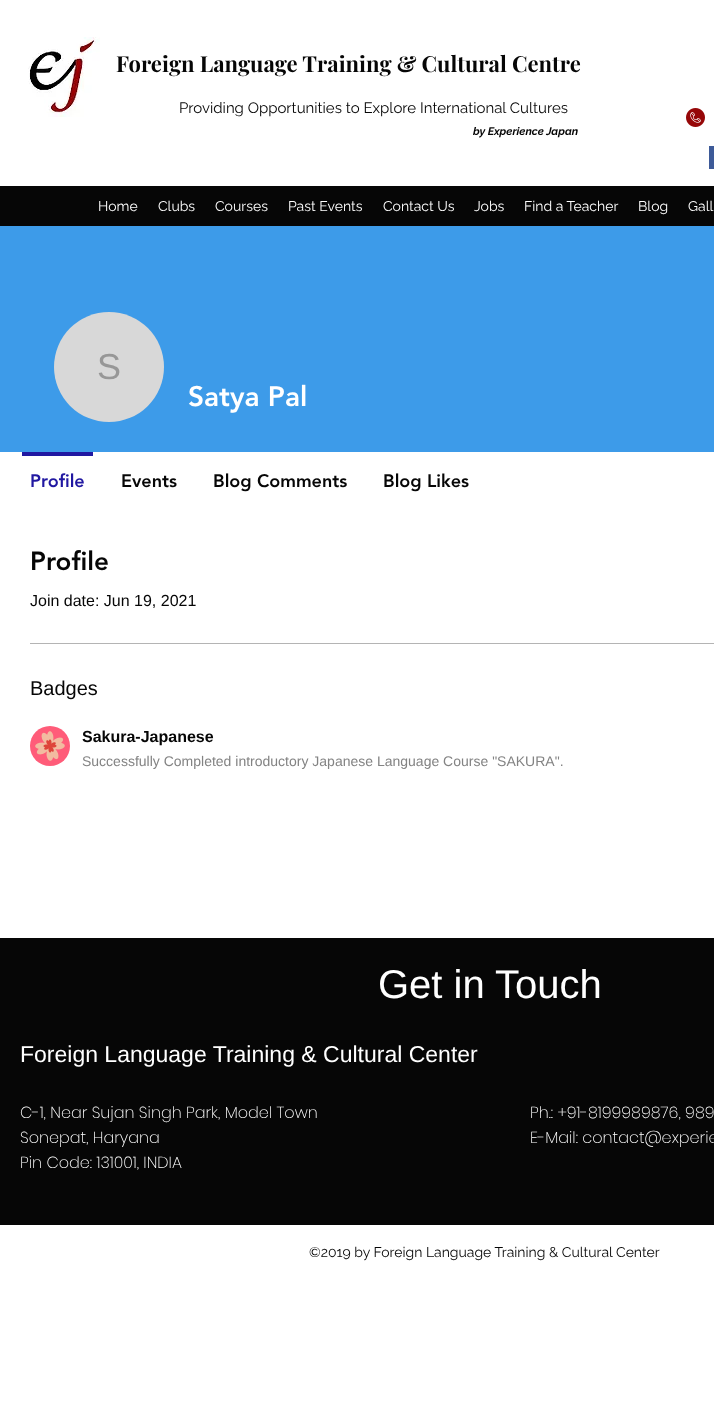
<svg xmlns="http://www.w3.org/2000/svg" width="714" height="1414">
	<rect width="100%" height="100%" fill="#FFFFFF" />
	<image x="28" y="37" width="72" height="80" href="assets/img1.png" />
	<text x="116" y="72" font-family="Playfair Display" font-size="22" font-weight="700" fill="#060606">Foreign Language Training &amp; Cultural Centre</text>
	<text x="179" y="113" font-family="Raleway" font-size="15" fill="#060606">Providing Opportunities to Explore International Cultures</text>
	<text x="473" y="135" font-family="Raleway" font-size="11" font-weight="700" font-style="italic" fill="#060606">by Experience Japan</text>
	<image x="686" y="108" width="19" height="19" href="assets/img2.png" />
	<rect x="709" y="146" width="5" height="23" fill="#3D5A98" />
	<rect x="0" y="186" width="714" height="40" fill="#060606" />
	<g font-family="Raleway" font-size="14" fill="#FFFFFF">
		<text x="98" y="211">Home</text>
		<text x="158" y="211">Clubs</text>
		<text x="215" y="211">Courses</text>
		<text x="288" y="211">Past Events</text>
		<text x="383" y="211">Contact Us</text>
		<text x="474" y="211">Jobs</text>
		<text x="524" y="211">Find a Teacher</text>
		<text x="638" y="211">Blog</text>
		<text x="688" y="211">Gall</text>
	</g>
	<rect x="0" y="226" width="714" height="226" fill="#3D9BE9" />
	<circle cx="109" cy="367" r="55" fill="#D8D8D8" />
	<text x="97" y="379" font-family="Liberation Sans" font-size="36" fill="#979797">S</text>
	<text x="188" y="406" font-family="'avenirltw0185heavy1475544'" font-size="28" font-weight="900" fill="#FFFFFF">Satya Pal</text>
	<rect x="22" y="452" width="71" height="4" fill="#2118A1" />
	<text x="30" y="487" font-family="'avenirltw0185heavy1475544'" font-size="18" font-weight="900" fill="#2118A1">Profile</text>
	<g font-family="'avenirltw0185heavy1475544'" font-size="18" font-weight="900" fill="#060606">
		<text x="121" y="487">Events</text>
		<text x="213" y="487">Blog Comments</text>
		<text x="383" y="487">Blog Likes</text>
	</g>
	<text x="30" y="570" font-family="'avenirltw0185heavy1475544'" font-size="26" font-weight="900" fill="#060606">Profile</text>
	<text x="30" y="606" font-family="Liberation Sans" font-size="16" fill="#060606">Join date: Jun 19, 2021</text>
	<rect x="30" y="643" width="684" height="1" fill="#B4B4B4" />
	<text x="30" y="695" font-family="Liberation Sans" font-size="20" fill="#060606">Badges</text>
	<circle cx="50" cy="746" r="20" fill="#FF5C79" />
	<image x="35" y="731" width="30" height="30" href="assets/img3.png" />
	<text x="82" y="742" font-family="Liberation Sans" font-size="16" font-weight="700" fill="#060606">Sakura-Japanese</text>
	<text x="82" y="766" font-family="Liberation Sans" font-size="14" fill="#838383">Successfully Completed introductory Japanese Language Course "SAKURA".</text>
	<rect x="0" y="938" width="714" height="287" fill="#060606" />
	<text x="378" y="998" font-family="Liberation Sans" font-size="40" fill="#FFFFFF">Get in Touch</text>
	<text x="20" y="1062" font-family="Liberation Sans" font-size="23" fill="#FFFFFF">Foreign Language Training &amp; Cultural Center</text>
	<g font-family="Poppins" font-size="16" font-weight="200" fill="#FFFFFF">
		<text x="20" y="1118">C-1, Near Sujan Singh Park, Model Town</text>
		<text x="20" y="1143">Sonepat, Haryana</text>
		<text x="20" y="1168">Pin Code: 131001, INDIA</text>
		<text x="530" y="1118">Ph.: +91-8199989876, 989</text>
		<text x="530" y="1143">E-Mail: contact@experie</text>
	</g>
	<text x="309" y="1257" font-family="Raleway" font-size="14" fill="#060606">©2019 by Foreign Language Training &amp; Cultural Center</text>
</svg>
